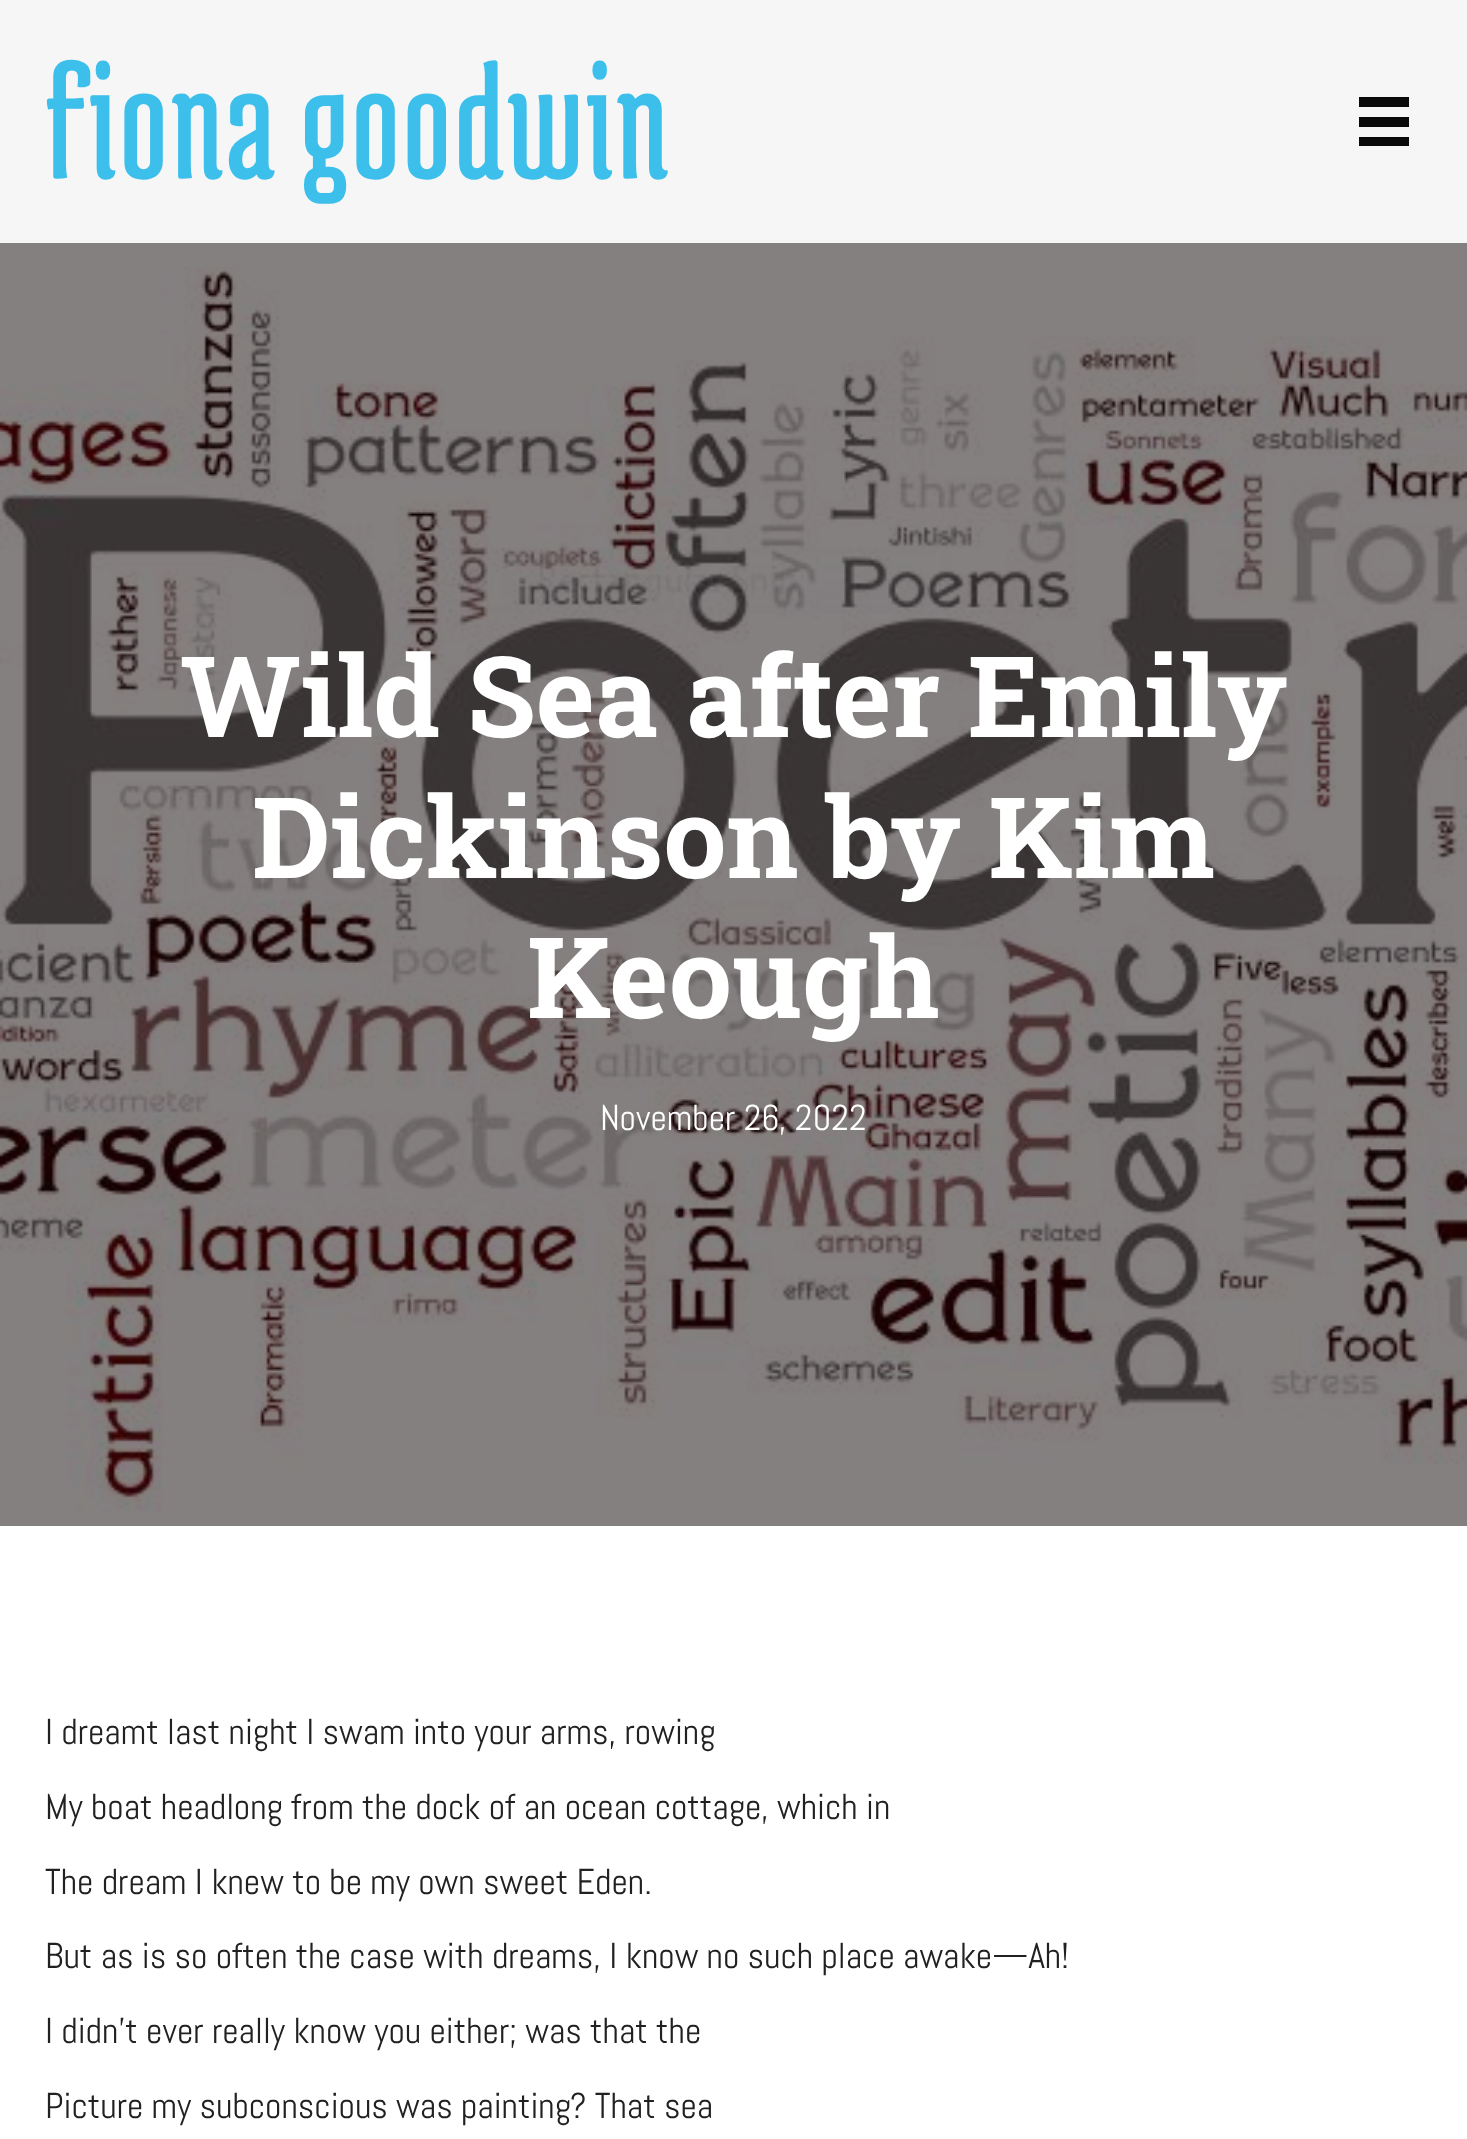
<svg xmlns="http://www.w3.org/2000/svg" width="1467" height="2139">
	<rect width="100%" height="100%" fill="#FFFFFF" />
	<rect x="0" y="0" width="1467" height="243" fill="#F6F6F6" />
	<text x="45" y="178" font-family="Medula One" font-size="169" letter-spacing="2.25" fill="#3DBFEB">fiona goodwin</text>
	<rect x="1359" y="97" width="50" height="10" fill="#0A0A0A" />
	<rect x="1359" y="117" width="50" height="10" fill="#0A0A0A" />
	<rect x="1359" y="137" width="50" height="9" fill="#0A0A0A" />
	<rect x="0" y="243" width="1467" height="1283" fill="#858080" />
	<image x="0" y="266" width="1467" height="1246" href="assets/img1.png" />
	<g font-family="Roboto Slab" font-size="112.5" font-weight="700" fill="#FFFFFF">
		<text x="180" y="737">Wild Sea after Emily</text>
		<text x="252" y="878">Dickinson by Kim</text>
		<text x="527" y="1018">Keough</text>
	</g>
	<text x="600" y="1130" font-family="Abel" font-size="36" fill="#FFFFFF">November 26, 2022</text>
	<g font-family="Abel" font-size="36" fill="#212121">
		<text x="45" y="1744">I dreamt last night I swam into your arms, rowing</text>
		<text x="45" y="1819">My boat headlong from the dock of an ocean cottage, which in</text>
		<text x="45" y="1894">The dream I knew to be my own sweet Eden.</text>
		<text x="45" y="1968">But as is so often the case with dreams, I know no such place awake—Ah!</text>
		<text x="45" y="2043">I didn’t ever really know you either; was that the</text>
		<text x="45" y="2118">Picture my subconscious was painting? That sea</text>
	</g>
</svg>
